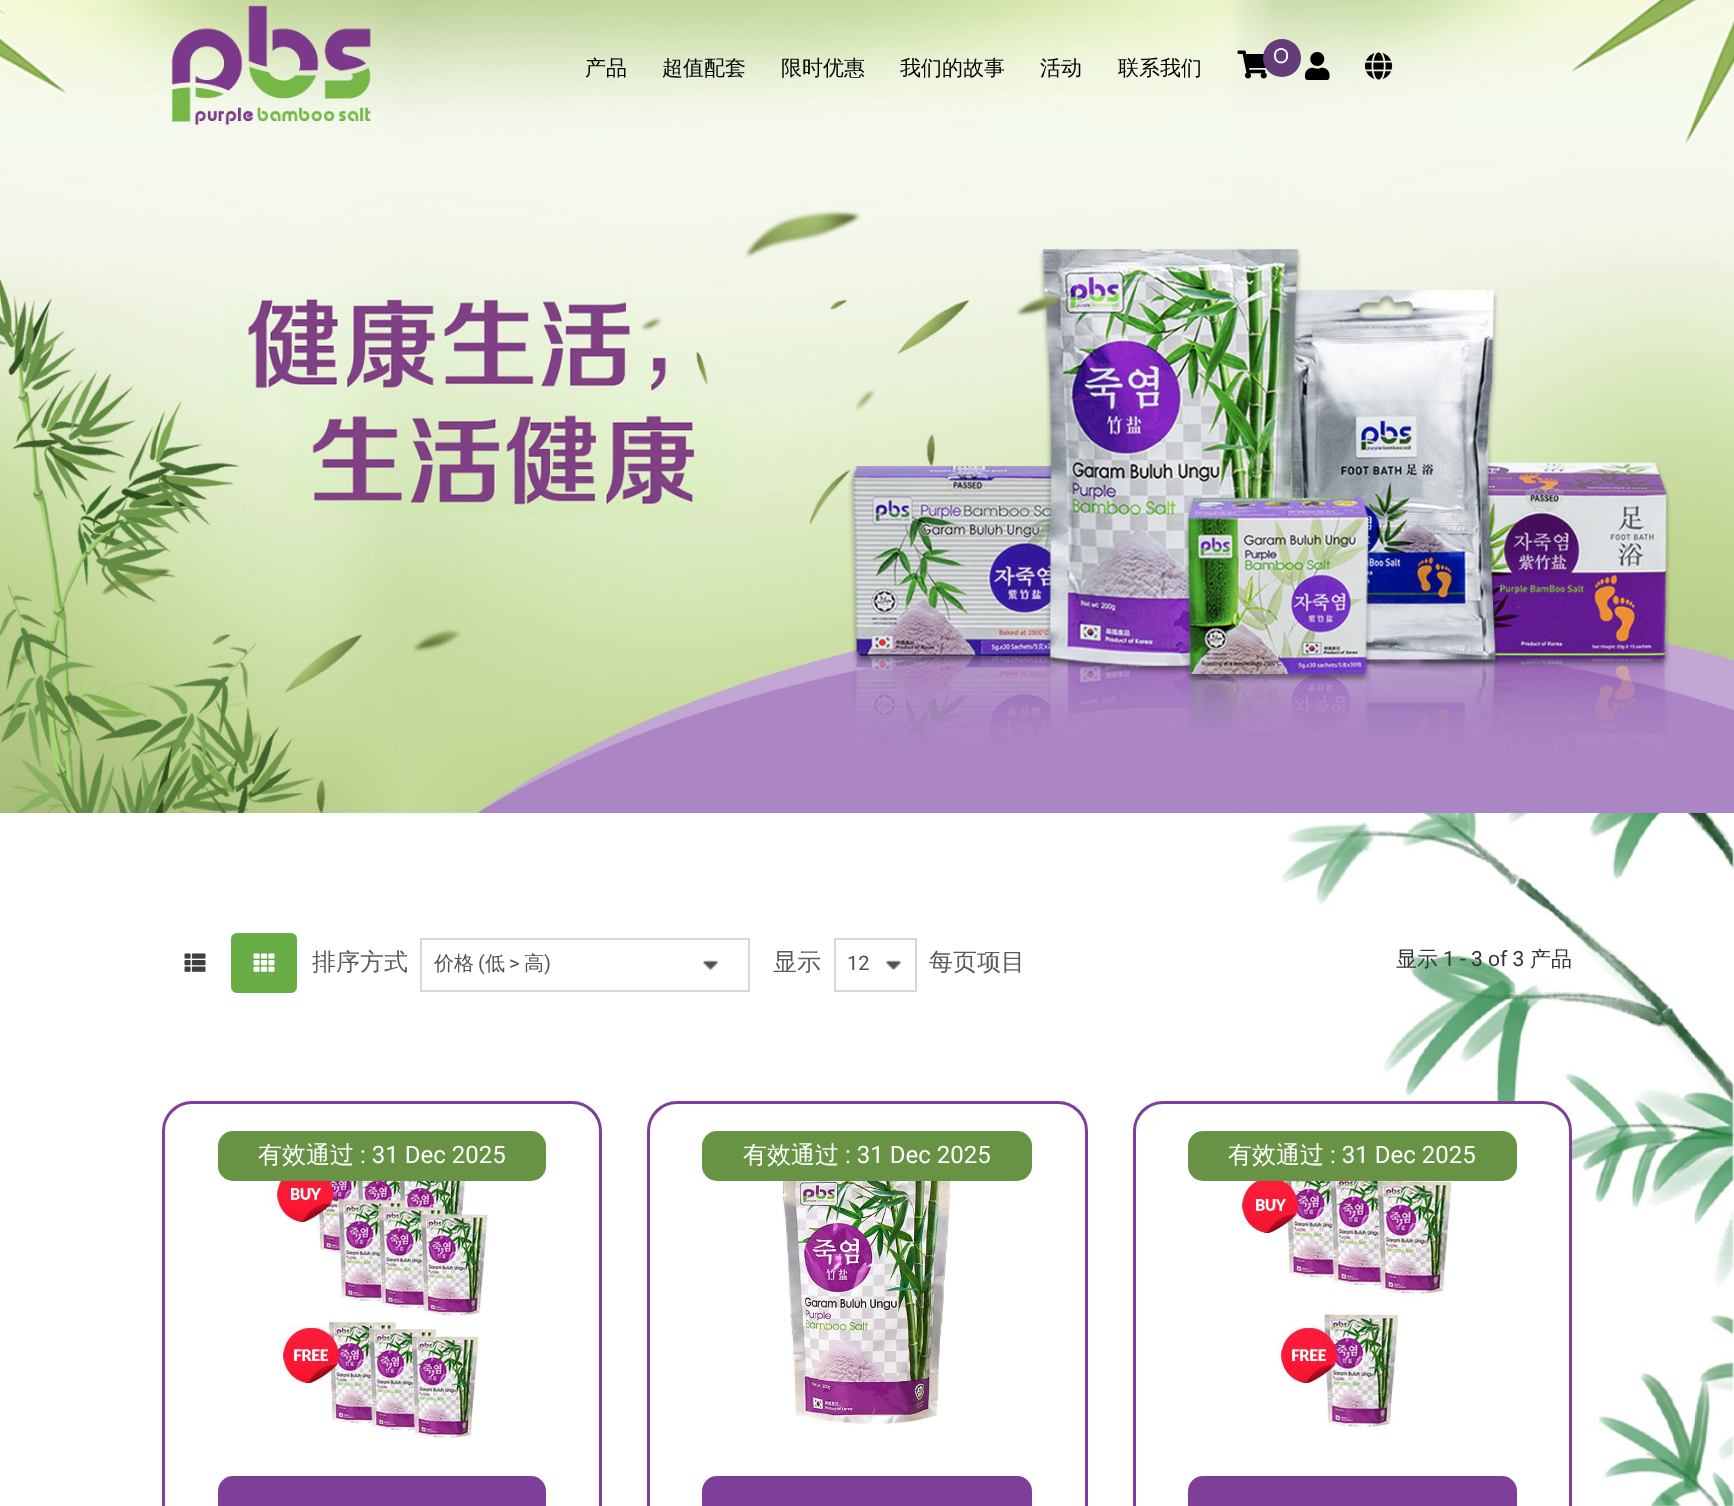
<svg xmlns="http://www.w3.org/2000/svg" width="1734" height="1506">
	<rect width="100%" height="100%" fill="#FFFFFF" />
	<image x="0" y="0" width="1734" height="813" href="assets/img5.png" />
	<image x="171" y="5" width="200" height="120" href="assets/img1.png" />
	<g font-family="WenQuanYi Zen Hei" font-size="21" font-weight="500" fill="#000000">
		<text x="585" y="75">产品</text>
		<text x="662" y="75">超值配套</text>
		<text x="781" y="75">限时优惠</text>
		<text x="900" y="75">我们的故事</text>
		<text x="1040" y="75">活动</text>
		<text x="1118" y="75">联系我们</text>
	</g>
	<image x="1237" y="50" width="30" height="29" href="assets/img2.png" />
	<circle cx="1282" cy="58" r="19" fill="#633C78" />
	<text x="1273" y="63" font-family="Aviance" font-size="21" fill="#FFFFFF">0</text>
	<image x="1305" y="52" width="25" height="28" href="assets/img3.png" />
	<image x="1365" y="52" width="28" height="28" href="assets/img4.png" />
	<image x="0" y="813" width="1734" height="693" href="assets/img6.png" />
	<image x="184" y="953" width="22" height="19" href="assets/img7.png" />
	<rect x="231" y="933" width="66" height="60" rx="6" fill="#68AD45" />
	<image x="253" y="953" width="22" height="19" href="assets/img8.png" />
	<text x="312" y="970" font-family="WenQuanYi Zen Hei" font-size="24" font-weight="500" fill="#5B5B5B">排序方式</text>
	<image x="703" y="960" width="16" height="11" href="assets/img9.png" />
	<rect x="421" y="939" width="328" height="52" fill="none" stroke="#D7D7D7" stroke-width="2" />
	<text x="434" y="970" font-family="WenQuanYi Zen Hei" font-size="20" font-weight="500" fill="#515151">价格</text>
	<text x="478" y="970" font-family="Roboto" font-size="20" fill="#515151">(</text>
	<text x="485" y="970" font-family="WenQuanYi Zen Hei" font-size="20" font-weight="500" fill="#515151">低</text>
	<text x="509" y="970" font-family="Roboto" font-size="20" fill="#515151">&gt;</text>
	<text x="524" y="970" font-family="WenQuanYi Zen Hei" font-size="20" font-weight="500" fill="#515151">高</text>
	<text x="544" y="970" font-family="Roboto" font-size="20" fill="#515151">)</text>
	<text x="773" y="970" font-family="WenQuanYi Zen Hei" font-size="24" font-weight="500" fill="#5B5B5B">显示</text>
	<image x="886" y="960" width="16" height="11" href="assets/img10.png" />
	<rect x="835" y="939" width="81" height="52" fill="none" stroke="#D7D7D7" stroke-width="2" />
	<text x="847" y="970" font-family="Roboto" font-size="20" fill="#515151">12</text>
	<text x="929" y="970" font-family="WenQuanYi Zen Hei" font-size="24" font-weight="500" fill="#5B5B5B">每页项目</text>
	<text x="1396" y="966" font-family="WenQuanYi Zen Hei" font-size="21" font-weight="500" fill="#333333">显示</text>
	<text x="1443" y="966" font-family="Roboto" font-size="21" fill="#333333">1 - 3 of 3</text>
	<text x="1530" y="966" font-family="WenQuanYi Zen Hei" font-size="21" font-weight="500" fill="#333333">产品</text>
	<rect x="163.5" y="1102.5" width="437" height="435" rx="28.5" fill="none" stroke="#7F3F98" stroke-width="3" />
	<rect x="218" y="1131" width="328" height="50" rx="15" fill="#689345" />
	<text x="258" y="1163" font-family="WenQuanYi Zen Hei" font-size="24" font-weight="500" fill="#FFFFFF">有效通过</text>
	<text x="360" y="1163" font-family="Roboto" font-size="24" fill="#FFFFFF">: 31 Dec 2025</text>
	<image x="270" y="1181" width="219" height="258" href="assets/img11.png" />
	<rect x="218" y="1476" width="328" height="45" rx="15" fill="#7F3F98" />
	<rect x="648.5" y="1102.5" width="438" height="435" rx="28.5" fill="none" stroke="#7F3F98" stroke-width="3" />
	<rect x="702" y="1131" width="330" height="50" rx="15" fill="#689345" />
	<text x="743" y="1163" font-family="WenQuanYi Zen Hei" font-size="24" font-weight="500" fill="#FFFFFF">有效通过</text>
	<text x="845" y="1163" font-family="Roboto" font-size="24" fill="#FFFFFF">: 31 Dec 2025</text>
	<image x="781" y="1181" width="172" height="244" href="assets/img12.png" />
	<rect x="702" y="1476" width="330" height="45" rx="15" fill="#7F3F98" />
	<rect x="1134.5" y="1102.5" width="436" height="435" rx="28.5" fill="#FFFFFF" stroke="#7F3F98" stroke-width="3" />
	<rect x="1188" y="1131" width="329" height="50" rx="15" fill="#689345" />
	<text x="1228" y="1163" font-family="WenQuanYi Zen Hei" font-size="24" font-weight="500" fill="#FFFFFF">有效通过</text>
	<text x="1330" y="1163" font-family="Roboto" font-size="24" fill="#FFFFFF">: 31 Dec 2025</text>
	<image x="1241" y="1181" width="211" height="249" href="assets/img13.png" />
	<rect x="1188" y="1476" width="329" height="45" rx="15" fill="#7F3F98" />
</svg>
